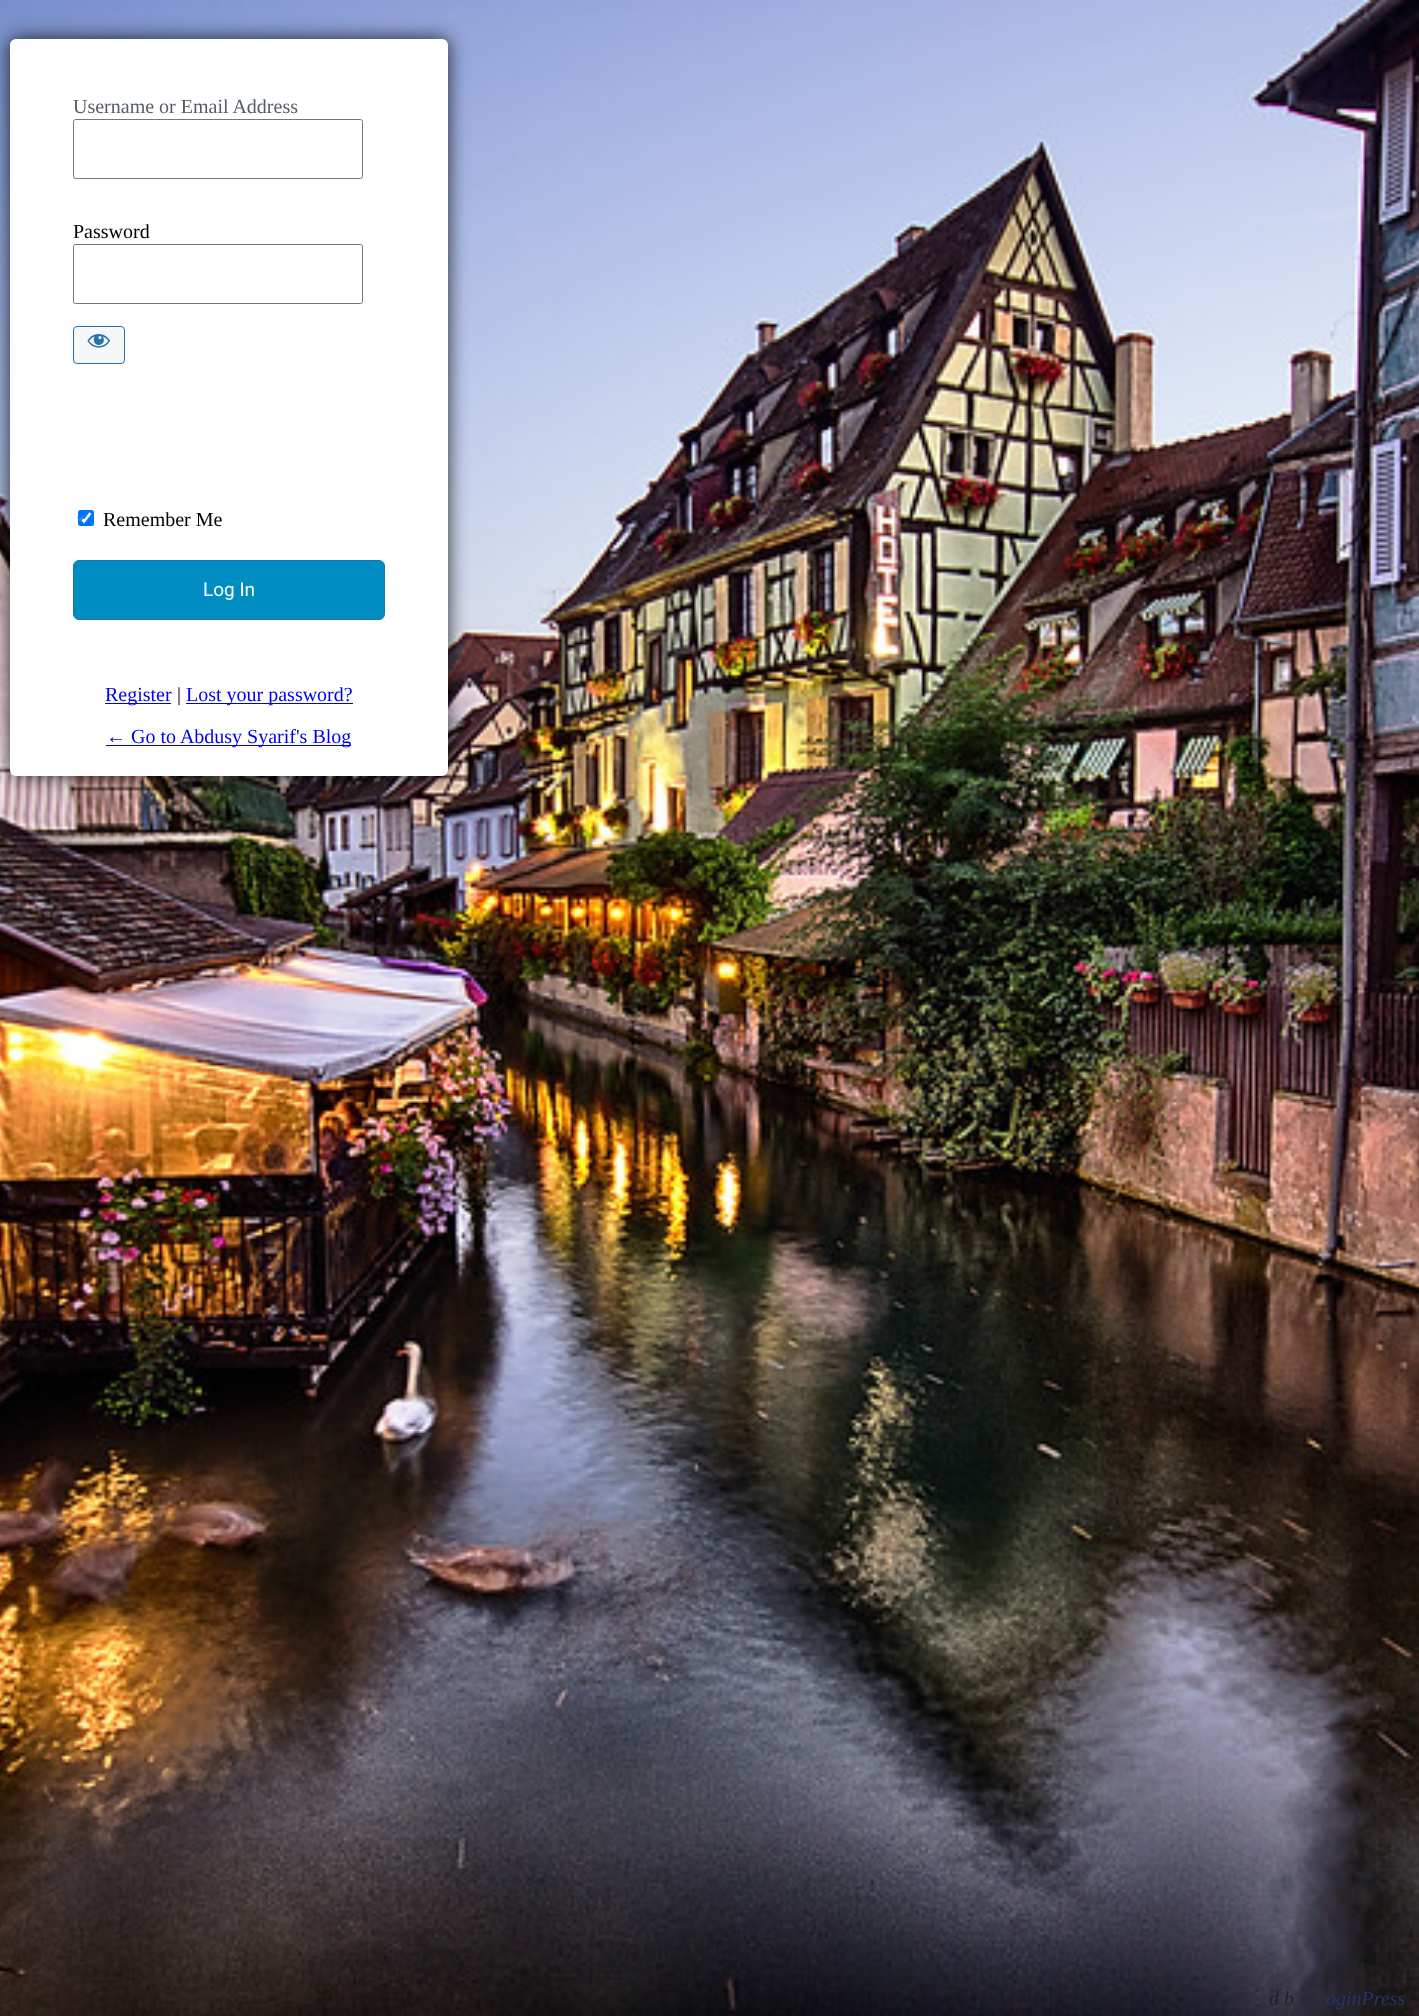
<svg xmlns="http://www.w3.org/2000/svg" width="1419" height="2016">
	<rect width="100%" height="100%" fill="#FFFFFF" />
	<image x="0" y="0" width="1419" height="2016" href="assets/img1.png" />
	<rect x="10" y="39" width="438" height="737" rx="6" fill="#000000" fill-opacity="0.8" filter="blur(9.5px)" />
	<rect x="10" y="39" width="438" height="737" rx="6" fill="#FFFFFF" />
	<text x="73" y="113" font-family="Liberation Serif" font-size="20" fill="#555D66">Username or Email Address</text>
	<rect x="73.5" y="119.5" width="289" height="59" rx="2" fill="none" stroke="#767676" />
	<text x="73" y="238" font-family="Liberation Serif" font-size="20" fill="#000000">Password</text>
	<rect x="73.5" y="244.5" width="289" height="59" rx="2" fill="none" stroke="#767676" />
	<rect x="73.5" y="326.5" width="51" height="37" rx="3.5" fill="#F6F7F7" stroke="#2271B1" />
	<image x="87" y="334" width="24" height="14" href="assets/img2.png" />
	<rect x="78" y="510" width="16" height="16" rx="2.5" fill="#0075FF" />
	<path d="M81 518L84 521.5L90.5 513" fill="none" stroke="#FFFFFF" stroke-width="2.6" />
	<image x="77" y="514" width="9" height="8" href="assets/img3.png" />
	<text x="103" y="526" font-family="Liberation Serif" font-size="20" fill="#000000">Remember Me</text>
	<rect x="73.5" y="560.5" width="311" height="59" rx="5.5" fill="#008EC2" stroke="#2271B1" />
	<text x="203" y="596" font-family="Roboto" font-size="19" fill="#FFFFFF">Log In</text>
	<rect x="105" y="703" width="66" height="1" fill="#0000EE" />
	<text x="105" y="701" font-family="Liberation Serif" font-size="20" fill="#0000EE">Register</text>
	<text x="177" y="701" font-family="Liberation Serif" font-size="20" fill="#000000">|</text>
	<rect x="186" y="703" width="167" height="1" fill="#0000EE" />
	<text x="186" y="701" font-family="Liberation Serif" font-size="20" fill="#0000EE">Lost your password?</text>
	<rect x="106" y="745" width="245" height="1" fill="#0000EE" />
	<text x="106" y="743" font-family="Liberation Serif" font-size="20" fill="#0000EE">← Go to Abdusy Syarif's Blog</text>
	<text x="1269" y="2005" font-family="Liberation Serif" font-size="20" font-style="italic" fill="#222222">d b</text>
	<text x="1326" y="2005" font-family="Liberation Serif" font-size="20" font-style="italic" fill="#263466">oginPress</text>
</svg>
